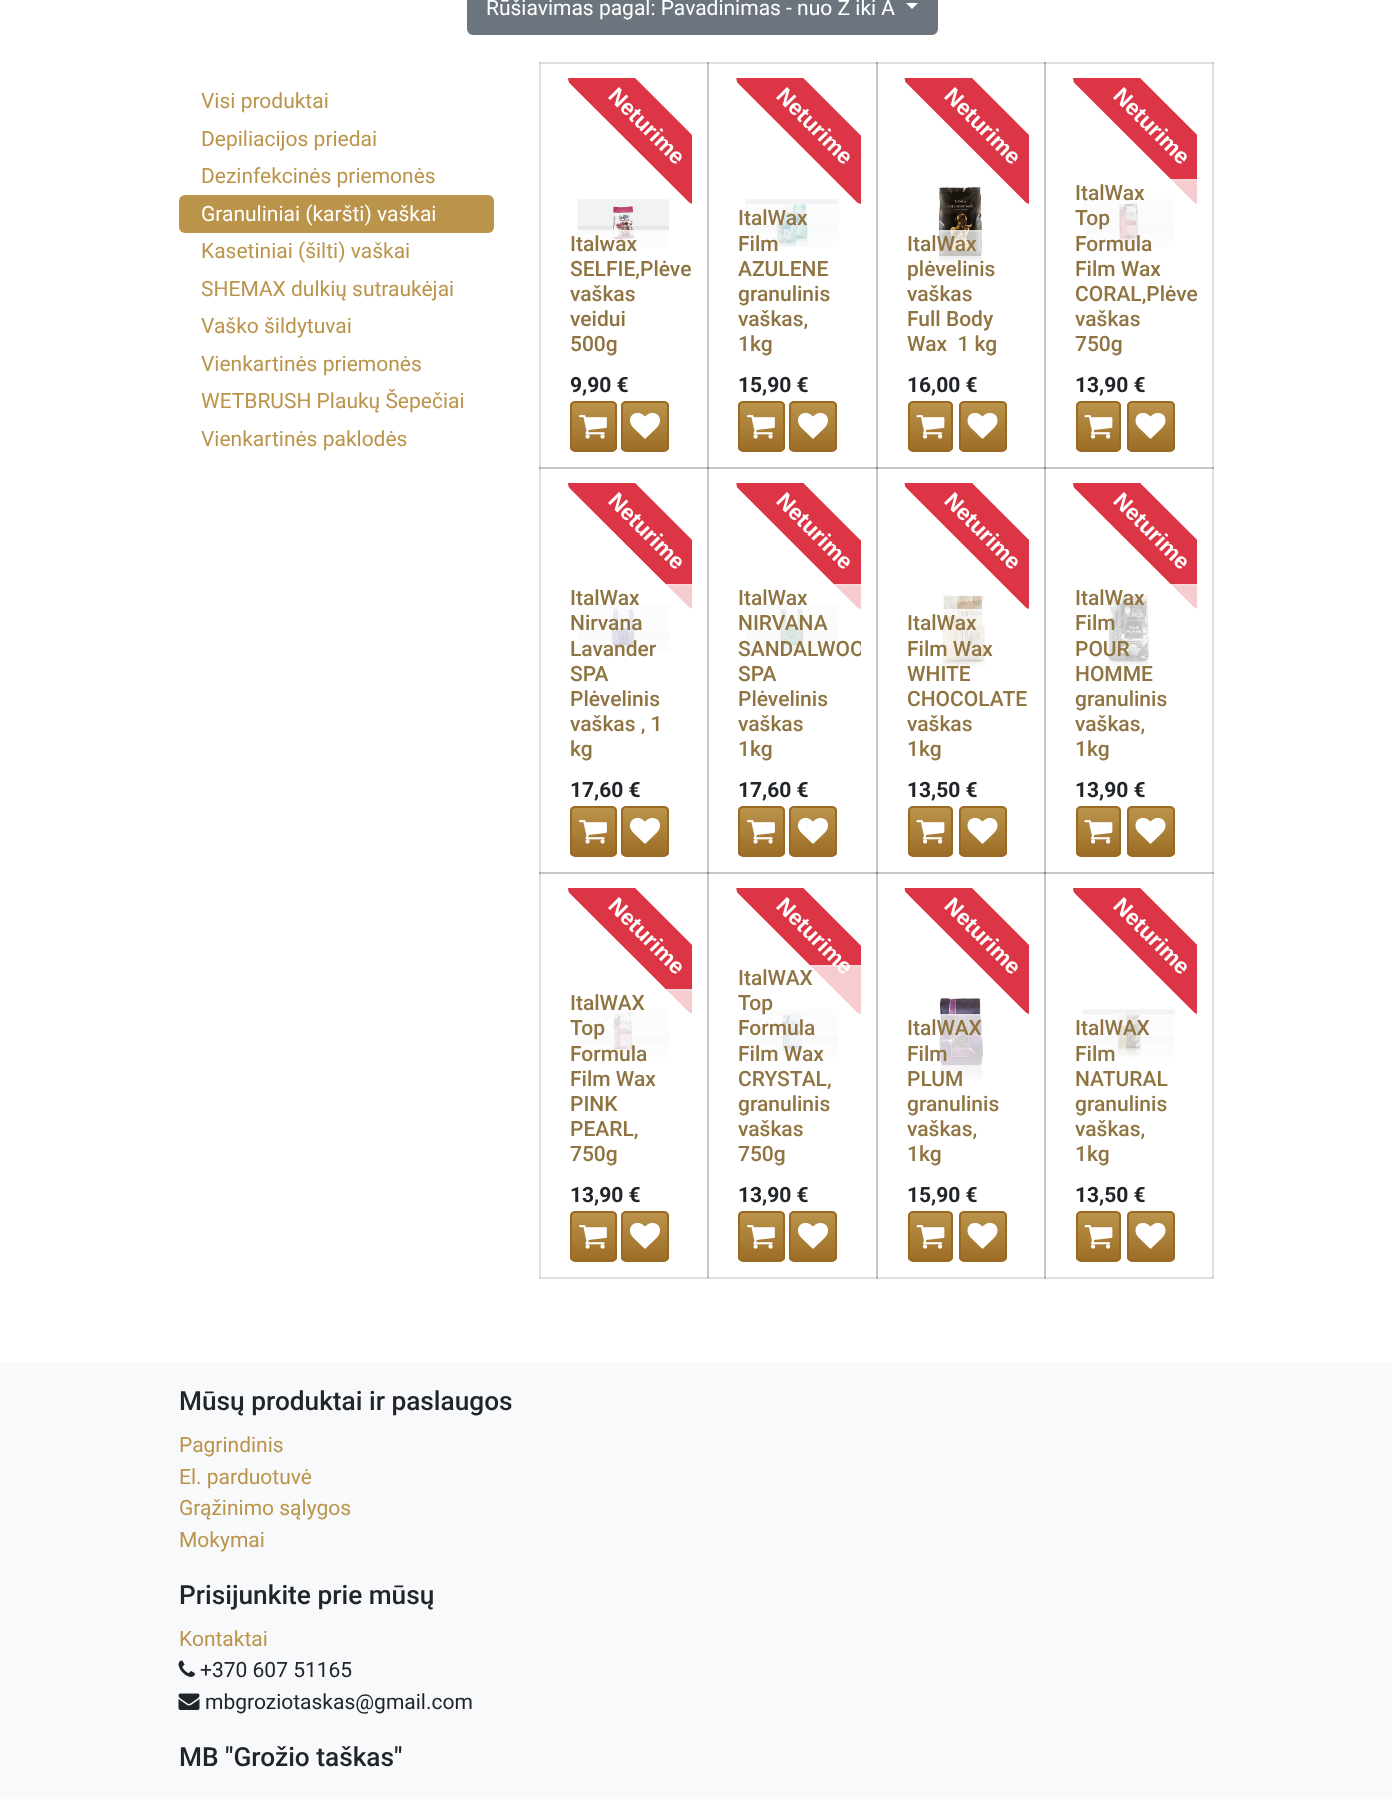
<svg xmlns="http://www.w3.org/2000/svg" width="1392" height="1799">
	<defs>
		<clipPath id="clip1"><rect x="564" y="78" width="128" height="132" /></clipPath>
		<clipPath id="clip2"><rect x="570" y="401" width="47" height="51" rx="5" /></clipPath>
		<linearGradient id="g1" gradientUnits="userSpaceOnUse" x1="593" y1="402" x2="593" y2="450"><stop offset="0" stop-color="#BB944B" /><stop offset="1" stop-color="#9C6D26" /></linearGradient>
		<clipPath id="clip3"><rect x="621" y="401" width="48" height="51" rx="5" /></clipPath>
		<linearGradient id="g2" gradientUnits="userSpaceOnUse" x1="645" y1="402" x2="645" y2="450"><stop offset="0" stop-color="#BB944B" /><stop offset="1" stop-color="#9C6D26" /></linearGradient>
		<clipPath id="clip4"><rect x="734" y="78" width="127" height="132" /></clipPath>
		<clipPath id="clip5"><rect x="738" y="401" width="47" height="51" rx="5" /></clipPath>
		<linearGradient id="g3" gradientUnits="userSpaceOnUse" x1="761" y1="402" x2="761" y2="450"><stop offset="0" stop-color="#BB944B" /><stop offset="1" stop-color="#9C6D26" /></linearGradient>
		<clipPath id="clip6"><rect x="789" y="401" width="48" height="51" rx="5" /></clipPath>
		<linearGradient id="g4" gradientUnits="userSpaceOnUse" x1="813" y1="402" x2="813" y2="450"><stop offset="0" stop-color="#BB944B" /><stop offset="1" stop-color="#9C6D26" /></linearGradient>
		<clipPath id="clip7"><rect x="902" y="78" width="127" height="132" /></clipPath>
		<clipPath id="clip8"><rect x="908" y="401" width="45" height="51" rx="5" /></clipPath>
		<linearGradient id="g5" gradientUnits="userSpaceOnUse" x1="930" y1="402" x2="930" y2="450"><stop offset="0" stop-color="#BB944B" /><stop offset="1" stop-color="#9C6D26" /></linearGradient>
		<clipPath id="clip9"><rect x="959" y="401" width="48" height="51" rx="5" /></clipPath>
		<linearGradient id="g6" gradientUnits="userSpaceOnUse" x1="983" y1="402" x2="983" y2="450"><stop offset="0" stop-color="#BB944B" /><stop offset="1" stop-color="#9C6D26" /></linearGradient>
		<clipPath id="clip10"><rect x="1070" y="78" width="127" height="132" /></clipPath>
		<clipPath id="clip11"><rect x="1061" y="180" width="136" height="272" /></clipPath>
		<clipPath id="clip12"><rect x="1076" y="401" width="45" height="51" rx="5" /></clipPath>
		<linearGradient id="g7" gradientUnits="userSpaceOnUse" x1="1098" y1="402" x2="1098" y2="450"><stop offset="0" stop-color="#BB944B" /><stop offset="1" stop-color="#9C6D26" /></linearGradient>
		<clipPath id="clip13"><rect x="1127" y="401" width="48" height="51" rx="5" /></clipPath>
		<linearGradient id="g8" gradientUnits="userSpaceOnUse" x1="1151" y1="402" x2="1151" y2="450"><stop offset="0" stop-color="#BB944B" /><stop offset="1" stop-color="#9C6D26" /></linearGradient>
		<clipPath id="clip14"><rect x="564" y="483" width="128" height="132" /></clipPath>
		<clipPath id="clip15"><rect x="570" y="806" width="47" height="51" rx="5" /></clipPath>
		<linearGradient id="g9" gradientUnits="userSpaceOnUse" x1="593" y1="807" x2="593" y2="855"><stop offset="0" stop-color="#BB944B" /><stop offset="1" stop-color="#9C6D26" /></linearGradient>
		<clipPath id="clip16"><rect x="621" y="806" width="48" height="51" rx="5" /></clipPath>
		<linearGradient id="g10" gradientUnits="userSpaceOnUse" x1="645" y1="807" x2="645" y2="855"><stop offset="0" stop-color="#BB944B" /><stop offset="1" stop-color="#9C6D26" /></linearGradient>
		<clipPath id="clip17"><rect x="734" y="483" width="127" height="132" /></clipPath>
		<clipPath id="clip18"><rect x="723" y="585" width="138" height="272" /></clipPath>
		<clipPath id="clip19"><rect x="738" y="806" width="47" height="51" rx="5" /></clipPath>
		<linearGradient id="g11" gradientUnits="userSpaceOnUse" x1="761" y1="807" x2="761" y2="855"><stop offset="0" stop-color="#BB944B" /><stop offset="1" stop-color="#9C6D26" /></linearGradient>
		<clipPath id="clip20"><rect x="789" y="806" width="48" height="51" rx="5" /></clipPath>
		<linearGradient id="g12" gradientUnits="userSpaceOnUse" x1="813" y1="807" x2="813" y2="855"><stop offset="0" stop-color="#BB944B" /><stop offset="1" stop-color="#9C6D26" /></linearGradient>
		<clipPath id="clip21"><rect x="902" y="483" width="127" height="132" /></clipPath>
		<clipPath id="clip22"><rect x="908" y="806" width="45" height="51" rx="5" /></clipPath>
		<linearGradient id="g13" gradientUnits="userSpaceOnUse" x1="930" y1="807" x2="930" y2="855"><stop offset="0" stop-color="#BB944B" /><stop offset="1" stop-color="#9C6D26" /></linearGradient>
		<clipPath id="clip23"><rect x="959" y="806" width="48" height="51" rx="5" /></clipPath>
		<linearGradient id="g14" gradientUnits="userSpaceOnUse" x1="983" y1="807" x2="983" y2="855"><stop offset="0" stop-color="#BB944B" /><stop offset="1" stop-color="#9C6D26" /></linearGradient>
		<clipPath id="clip24"><rect x="1070" y="483" width="127" height="132" /></clipPath>
		<clipPath id="clip25"><rect x="1076" y="806" width="45" height="51" rx="5" /></clipPath>
		<linearGradient id="g15" gradientUnits="userSpaceOnUse" x1="1098" y1="807" x2="1098" y2="855"><stop offset="0" stop-color="#BB944B" /><stop offset="1" stop-color="#9C6D26" /></linearGradient>
		<clipPath id="clip26"><rect x="1127" y="806" width="48" height="51" rx="5" /></clipPath>
		<linearGradient id="g16" gradientUnits="userSpaceOnUse" x1="1151" y1="807" x2="1151" y2="855"><stop offset="0" stop-color="#BB944B" /><stop offset="1" stop-color="#9C6D26" /></linearGradient>
		<clipPath id="clip27"><rect x="564" y="888" width="128" height="132" /></clipPath>
		<clipPath id="clip28"><rect x="570" y="1211" width="47" height="51" rx="5" /></clipPath>
		<linearGradient id="g17" gradientUnits="userSpaceOnUse" x1="593" y1="1212" x2="593" y2="1260"><stop offset="0" stop-color="#BB944B" /><stop offset="1" stop-color="#9C6D26" /></linearGradient>
		<clipPath id="clip29"><rect x="621" y="1211" width="48" height="51" rx="5" /></clipPath>
		<linearGradient id="g18" gradientUnits="userSpaceOnUse" x1="645" y1="1212" x2="645" y2="1260"><stop offset="0" stop-color="#BB944B" /><stop offset="1" stop-color="#9C6D26" /></linearGradient>
		<clipPath id="clip30"><rect x="734" y="888" width="127" height="132" /></clipPath>
		<clipPath id="clip31"><rect x="738" y="1211" width="47" height="51" rx="5" /></clipPath>
		<linearGradient id="g19" gradientUnits="userSpaceOnUse" x1="761" y1="1212" x2="761" y2="1260"><stop offset="0" stop-color="#BB944B" /><stop offset="1" stop-color="#9C6D26" /></linearGradient>
		<clipPath id="clip32"><rect x="789" y="1211" width="48" height="51" rx="5" /></clipPath>
		<linearGradient id="g20" gradientUnits="userSpaceOnUse" x1="813" y1="1212" x2="813" y2="1260"><stop offset="0" stop-color="#BB944B" /><stop offset="1" stop-color="#9C6D26" /></linearGradient>
		<clipPath id="clip33"><rect x="902" y="888" width="127" height="132" /></clipPath>
		<clipPath id="clip34"><rect x="908" y="1211" width="45" height="51" rx="5" /></clipPath>
		<linearGradient id="g21" gradientUnits="userSpaceOnUse" x1="930" y1="1212" x2="930" y2="1260"><stop offset="0" stop-color="#BB944B" /><stop offset="1" stop-color="#9C6D26" /></linearGradient>
		<clipPath id="clip35"><rect x="959" y="1211" width="48" height="51" rx="5" /></clipPath>
		<linearGradient id="g22" gradientUnits="userSpaceOnUse" x1="983" y1="1212" x2="983" y2="1260"><stop offset="0" stop-color="#BB944B" /><stop offset="1" stop-color="#9C6D26" /></linearGradient>
		<clipPath id="clip36"><rect x="1070" y="888" width="127" height="132" /></clipPath>
		<clipPath id="clip37"><rect x="1076" y="1211" width="45" height="51" rx="5" /></clipPath>
		<linearGradient id="g23" gradientUnits="userSpaceOnUse" x1="1098" y1="1212" x2="1098" y2="1260"><stop offset="0" stop-color="#BB944B" /><stop offset="1" stop-color="#9C6D26" /></linearGradient>
		<clipPath id="clip38"><rect x="1127" y="1211" width="48" height="51" rx="5" /></clipPath>
		<linearGradient id="g24" gradientUnits="userSpaceOnUse" x1="1151" y1="1212" x2="1151" y2="1260"><stop offset="0" stop-color="#BB944B" /><stop offset="1" stop-color="#9C6D26" /></linearGradient>
	</defs>
	<rect width="100%" height="100%" fill="#FFFFFF" />
	<rect x="539" y="62" width="2" height="1216" fill="#E0E0E0" />
	<rect x="539" y="62" width="169" height="2" fill="#E0E0E0" />
	<rect x="539" y="62" width="2" height="2" fill="#C7C7C7" />
	<rect x="707" y="62" width="2" height="406" fill="#C7C7C7" />
	<rect x="707" y="62" width="171" height="2" fill="#E0E0E0" />
	<rect x="707" y="62" width="2" height="2" fill="#B3B3B3" />
	<rect x="707" y="62" width="1" height="2" fill="#A3A3A3" />
	<rect x="876" y="62" width="2" height="406" fill="#C7C7C7" />
	<rect x="876" y="62" width="170" height="2" fill="#E0E0E0" />
	<rect x="876" y="62" width="2" height="2" fill="#A3A3A3" />
	<rect x="1044" y="62" width="2" height="406" fill="#C7C7C7" />
	<rect x="1212" y="62" width="2" height="811" fill="#E0E0E0" />
	<rect x="539" y="467" width="169" height="2" fill="#C7C7C7" />
	<rect x="539" y="468" width="2" height="1" fill="#B3B3B3" />
	<rect x="539" y="467" width="2" height="1" fill="#A3A3A3" />
	<rect x="707" y="467" width="2" height="406" fill="#C7C7C7" />
	<rect x="707" y="467" width="171" height="2" fill="#C7C7C7" />
	<rect x="707" y="468" width="2" height="1" fill="#A3A3A3" />
	<rect x="707" y="467" width="2" height="1" fill="#8C8C8C" />
	<rect x="707" y="467" width="1" height="2" fill="#8C8C8C" />
	<rect x="707" y="467" width="1" height="1" fill="#7E7E7E" />
	<rect x="876" y="467" width="2" height="406" fill="#C7C7C7" />
	<rect x="876" y="467" width="170" height="2" fill="#C7C7C7" />
	<rect x="876" y="468" width="2" height="1" fill="#8C8C8C" />
	<rect x="876" y="467" width="2" height="1" fill="#7E7E7E" />
	<rect x="1044" y="467" width="2" height="406" fill="#C7C7C7" />
	<rect x="539" y="1277" width="169" height="2" fill="#E0E0E0" />
	<rect x="539" y="1277" width="2" height="1" fill="#C7C7C7" />
	<rect x="539" y="872" width="169" height="2" fill="#C7C7C7" />
	<rect x="539" y="873" width="2" height="1" fill="#B3B3B3" />
	<rect x="539" y="872" width="2" height="1" fill="#A3A3A3" />
	<rect x="707" y="872" width="2" height="406" fill="#C7C7C7" />
	<rect x="707" y="1277" width="171" height="2" fill="#E0E0E0" />
	<rect x="707" y="1277" width="1" height="2" fill="#C7C7C7" />
	<rect x="707" y="1277" width="2" height="1" fill="#B3B3B3" />
	<rect x="707" y="1277" width="1" height="1" fill="#A3A3A3" />
	<rect x="707" y="872" width="171" height="2" fill="#C7C7C7" />
	<rect x="707" y="873" width="2" height="1" fill="#A3A3A3" />
	<rect x="707" y="872" width="2" height="1" fill="#8C8C8C" />
	<rect x="707" y="872" width="1" height="2" fill="#8C8C8C" />
	<rect x="707" y="872" width="1" height="1" fill="#7E7E7E" />
	<rect x="876" y="872" width="2" height="406" fill="#C7C7C7" />
	<rect x="876" y="1277" width="170" height="2" fill="#E0E0E0" />
	<rect x="876" y="1278" width="2" height="1" fill="#C7C7C7" />
	<rect x="876" y="1277" width="2" height="1" fill="#A3A3A3" />
	<rect x="876" y="872" width="170" height="2" fill="#C7C7C7" />
	<rect x="876" y="873" width="2" height="1" fill="#8C8C8C" />
	<rect x="876" y="872" width="2" height="1" fill="#7E7E7E" />
	<rect x="1044" y="872" width="2" height="406" fill="#C7C7C7" />
	<rect x="1044" y="1277" width="170" height="2" fill="#E0E0E0" />
	<rect x="1044" y="1278" width="2" height="1" fill="#C7C7C7" />
	<rect x="1044" y="1277" width="2" height="1" fill="#A3A3A3" />
	<rect x="1212" y="872" width="2" height="406" fill="#E0E0E0" />
	<rect x="1212" y="1277" width="2" height="1" fill="#C7C7C7" />
	<rect x="468" y="-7" width="469" height="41" rx="5" fill="#6C757D" stroke="#6C757D" stroke-width="2" />
	<text x="486" y="15" font-family="Roboto" font-size="21" fill="#FFFFFF">Rūšiavimas pagal: Pavadinimas - nuo Z iki A</text>
	<path d="M906 3H918L912 9Z" fill="#FFFFFF" />
	<g font-family="Roboto" font-size="21" fill="#BB944B">
		<text x="201" y="108">Visi produktai</text>
		<text x="201" y="146">Depiliacijos priedai</text>
		<text x="201" y="183">Dezinfekcinės priemonės</text>
	</g>
	<rect x="179" y="195" width="315" height="38" rx="6" fill="#BB944B" />
	<text x="201" y="221" font-family="Roboto" font-size="21" fill="#FFFFFF">Granuliniai (karšti) vaškai</text>
	<g font-family="Roboto" font-size="21" fill="#BB944B">
		<text x="201" y="258">Kasetiniai (šilti) vaškai</text>
		<text x="201" y="296">SHEMAX dulkių sutraukėjai</text>
		<text x="201" y="333">Vaško šildytuvai</text>
		<text x="201" y="371">Vienkartinės priemonės</text>
		<text x="201" y="408">WETBRUSH Plaukų Šepečiai</text>
		<text x="201" y="446">Vienkartinės paklodės</text>
	</g>
	<image x="577" y="199" width="92" height="48" href="assets/img1.png" />
	<g clip-path="url(#clip1)">
		<path d="M605 48L724 167C726 169 726 173 724 176L697 202C695 204 691 204 689 202L570 83C568 81 568 77 570 75L596 48C599 46 603 46 605 48Z" fill="#DC3545" />
		<path d="M604.5 49L723 167.5C725.5 169.5 725.5 173 723 175L696.5 201.5C694.5 203.5 691.5 203.5 689.5 201.5L570.5 83C568.5 81 568.5 77.5 570.5 75.5L597 49C599 47 602.5 47 604.5 49Z" fill="none" stroke="#DC3545" stroke-width="1.5" />
	</g>
	<text x="607" y="97" transform="rotate(45 607 97)" font-family="Liberation Sans" font-size="22.5" font-weight="700" fill="#FFFFFF">Neturime</text>
	<rect x="577" y="230" width="92" height="17" fill="#FFFFFF" fill-opacity="0.75" />
	<rect x="613" y="230" width="20" height="2" fill="#FFFFFF" fill-opacity="0.2" />
	<g font-family="Roboto" font-size="21" font-weight="500" fill="#8F7441">
		<text x="570" y="251">Italwax</text>
		<text x="570" y="276">SELFIE,Plėve</text>
		<text x="570" y="301">vaškas</text>
		<text x="570" y="326">veidui</text>
		<text x="570" y="351">500g</text>
	</g>
	<text x="570" y="392" font-family="Roboto" font-size="21" font-weight="700" fill="#212529">9,90 €</text>
	<g clip-path="url(#clip2)">
		<rect x="570" y="402" width="47" height="48" fill="url(#g1)" />
	</g>
	<rect x="571" y="402" width="45" height="49" rx="4" fill="none" stroke="#9A6A24" stroke-width="2" />
	<image x="579" y="415" width="28" height="24" href="assets/img2.png" />
	<g clip-path="url(#clip3)">
		<rect x="621" y="402" width="48" height="48" fill="url(#g2)" />
	</g>
	<rect x="622" y="402" width="46" height="49" rx="4" fill="none" stroke="#9A6A24" stroke-width="2" />
	<image x="630" y="412" width="30" height="27" href="assets/img3.png" />
	<image x="745" y="199" width="94" height="52" href="assets/img4.png" />
	<g clip-path="url(#clip4)">
		<path d="M773 48L892 167C894 169 894 173 892 176L866 202C863 204 859 204 857 202L738 83C736 81 736 77 738 75L765 48C767 46 771 46 773 48Z" fill="#DC3545" />
		<path d="M773 49L891.5 167.5C893.5 169.5 893.5 173 891.5 175L865 201.5C863 203.5 859.5 203.5 857.5 201.5L739 83C737 81 737 77.5 739 75.5L765.5 49C767.5 47 771 47 773 49Z" fill="none" stroke="#DC3545" stroke-width="1.5" />
	</g>
	<text x="775" y="97" transform="rotate(45 775 97)" font-family="Liberation Sans" font-size="22.5" font-weight="700" fill="#FFFFFF">Neturime</text>
	<rect x="793" y="204" width="13" height="2" fill="#FFFFFF" fill-opacity="0.2" />
	<g font-family="Roboto" font-size="21" font-weight="500" fill="#8F7441">
		<text x="738" y="225">ItalWax</text>
		<text x="738" y="251">Film</text>
		<text x="738" y="276">AZULENE</text>
		<text x="738" y="301">granulinis</text>
		<text x="738" y="326">vaškas,</text>
		<text x="738" y="351">1kg</text>
	</g>
	<text x="738" y="392" font-family="Roboto" font-size="21" font-weight="700" fill="#212529">15,90 €</text>
	<g clip-path="url(#clip5)">
		<rect x="738" y="402" width="47" height="48" fill="url(#g3)" />
	</g>
	<rect x="739" y="402" width="45" height="49" rx="4" fill="none" stroke="#9A6A24" stroke-width="2" />
	<image x="747" y="415" width="28" height="24" href="assets/img2.png" />
	<g clip-path="url(#clip6)">
		<rect x="789" y="402" width="48" height="48" fill="url(#g4)" />
	</g>
	<rect x="790" y="402" width="46" height="49" rx="4" fill="none" stroke="#9A6A24" stroke-width="2" />
	<image x="798" y="412" width="30" height="27" href="assets/img3.png" />
	<image x="937" y="186" width="46" height="79" href="assets/img5.png" />
	<g clip-path="url(#clip7)">
		<path d="M942 48L1061 167C1063 169 1063 173 1061 176L1034 202C1032 204 1028 204 1026 202L907 83C904 81 904 77 907 75L933 48C936 46 939 46 942 48Z" fill="#DC3545" />
		<path d="M941 49L1060 167.5C1062 169.5 1062 173 1060 175L1033.5 201.5C1031.5 203.5 1028 203.5 1026 201.5L907.5 83C905 81 905 77.5 907.5 75.5L934 49C936 47 939 47 941 49Z" fill="none" stroke="#DC3545" stroke-width="1.5" />
	</g>
	<text x="943" y="97" transform="rotate(45 943 97)" font-family="Liberation Sans" font-size="22.5" font-weight="700" fill="#FFFFFF">Neturime</text>
	<rect x="937" y="230" width="46" height="35" fill="#FFFFFF" fill-opacity="0.75" />
	<rect x="939" y="230" width="43" height="2" fill="#FFFFFF" fill-opacity="0.2" />
	<g font-family="Roboto" font-size="21" font-weight="500" fill="#8F7441">
		<text x="907" y="251">ItalWax</text>
		<text x="907" y="276">plėvelinis</text>
		<text x="907" y="301">vaškas</text>
		<text x="907" y="326">Full Body</text>
		<text x="907" y="351" xml:space="preserve">Wax  1 kg</text>
	</g>
	<text x="907" y="392" font-family="Roboto" font-size="21" font-weight="700" fill="#212529">16,00 €</text>
	<g clip-path="url(#clip8)">
		<rect x="908" y="402" width="45" height="48" fill="url(#g5)" />
	</g>
	<rect x="909" y="402" width="43" height="49" rx="4" fill="none" stroke="#9A6A24" stroke-width="2" />
	<image x="916" y="415" width="29" height="24" href="assets/img6.png" />
	<g clip-path="url(#clip9)">
		<rect x="959" y="402" width="48" height="48" fill="url(#g6)" />
	</g>
	<rect x="960" y="402" width="46" height="49" rx="4" fill="none" stroke="#9A6A24" stroke-width="2" />
	<image x="967" y="412" width="31" height="27" href="assets/img7.png" />
	<rect x="1044" y="62" width="170" height="2" fill="#E0E0E0" />
	<rect x="1044" y="62" width="2" height="2" fill="#A3A3A3" />
	<rect x="1212" y="62" width="2" height="2" fill="#C7C7C7" />
	<image x="1083" y="199" width="92" height="48" href="assets/img8.png" />
	<g clip-path="url(#clip10)">
		<path d="M1110 48L1229 167C1231 169 1231 173 1229 176L1202 202C1200 204 1196 204 1194 202L1075 83C1073 81 1073 77 1075 75L1102 48C1104 46 1108 46 1110 48Z" fill="#DC3545" />
		<path d="M1109.5 49L1228.5 167.5C1230.5 169.5 1230.5 173 1228.5 175L1202 201.5C1200 203.5 1196.5 203.5 1194.5 201.5L1075.5 83C1073.5 81 1073.5 77.5 1075.5 75.5L1102 49C1104 47 1107.5 47 1109.5 49Z" fill="none" stroke="#DC3545" stroke-width="1.5" />
	</g>
	<text x="1112" y="97" transform="rotate(45 1112 97)" font-family="Liberation Sans" font-size="22.5" font-weight="700" fill="#FFFFFF">Neturime</text>
	<rect x="1083" y="179" width="114" height="68" fill="#FFFFFF" fill-opacity="0.75" />
	<rect x="1171" y="179" width="26" height="2" fill="#FFFFFF" fill-opacity="0.2" />
	<g font-family="Roboto" font-size="21" font-weight="500" fill="#8F7441">
		<text x="1075" y="200">ItalWax</text>
		<text x="1075" y="225">Top</text>
		<text x="1075" y="251">Formula</text>
		<text x="1075" y="276">Film Wax</text>
	</g>
	<g clip-path="url(#clip11)">
		<text x="1075" y="301" font-family="Roboto" font-size="21" font-weight="500" fill="#8F7441">CORAL,Plėve</text>
	</g>
	<g font-family="Roboto" font-size="21" font-weight="500" fill="#8F7441">
		<text x="1075" y="326">vaškas</text>
		<text x="1075" y="351">750g</text>
	</g>
	<text x="1075" y="392" font-family="Roboto" font-size="21" font-weight="700" fill="#212529">13,90 €</text>
	<g clip-path="url(#clip12)">
		<rect x="1076" y="402" width="45" height="48" fill="url(#g7)" />
	</g>
	<rect x="1077" y="402" width="43" height="49" rx="4" fill="none" stroke="#9A6A24" stroke-width="2" />
	<image x="1084" y="415" width="29" height="24" href="assets/img6.png" />
	<g clip-path="url(#clip13)">
		<rect x="1127" y="402" width="48" height="48" fill="url(#g8)" />
	</g>
	<rect x="1128" y="402" width="46" height="49" rx="4" fill="none" stroke="#9A6A24" stroke-width="2" />
	<image x="1135" y="412" width="31" height="27" href="assets/img7.png" />
	<image x="577" y="604" width="92" height="48" href="assets/img9.png" />
	<g clip-path="url(#clip14)">
		<path d="M605 453L724 572C726 574 726 578 724 581L697 607C695 609 691 609 689 607L570 488C568 486 568 482 570 480L596 453C599 451 603 451 605 453Z" fill="#DC3545" />
		<path d="M604.5 454L723 572.5C725.5 574.5 725.5 578 723 580L696.5 606.5C694.5 608.5 691.5 608.5 689.5 606.5L570.5 488C568.5 486 568.5 482.5 570.5 480.5L597 454C599 452 602.5 452 604.5 454Z" fill="none" stroke="#DC3545" stroke-width="1.5" />
	</g>
	<text x="607" y="502" transform="rotate(45 607 502)" font-family="Liberation Sans" font-size="22.5" font-weight="700" fill="#FFFFFF">Neturime</text>
	<rect x="577" y="584" width="115" height="68" fill="#FFFFFF" fill-opacity="0.75" />
	<rect x="666" y="584" width="26" height="2" fill="#FFFFFF" fill-opacity="0.2" />
	<g font-family="Roboto" font-size="21" font-weight="500" fill="#8F7441">
		<text x="570" y="605">ItalWax</text>
		<text x="570" y="630">Nirvana</text>
		<text x="570" y="656">Lavander</text>
		<text x="570" y="681">SPA</text>
		<text x="570" y="706">Plėvelinis</text>
		<text x="570" y="731">vaškas , 1</text>
		<text x="570" y="756">kg</text>
	</g>
	<text x="570" y="797" font-family="Roboto" font-size="21" font-weight="700" fill="#212529">17,60 €</text>
	<g clip-path="url(#clip15)">
		<rect x="570" y="807" width="47" height="48" fill="url(#g9)" />
	</g>
	<rect x="571" y="807" width="45" height="49" rx="4" fill="none" stroke="#9A6A24" stroke-width="2" />
	<image x="579" y="820" width="28" height="24" href="assets/img2.png" />
	<g clip-path="url(#clip16)">
		<rect x="621" y="807" width="48" height="48" fill="url(#g10)" />
	</g>
	<rect x="622" y="807" width="46" height="49" rx="4" fill="none" stroke="#9A6A24" stroke-width="2" />
	<image x="630" y="817" width="30" height="27" href="assets/img3.png" />
	<image x="745" y="604" width="94" height="49" href="assets/img10.png" />
	<g clip-path="url(#clip17)">
		<path d="M773 453L892 572C894 574 894 578 892 581L866 607C863 609 859 609 857 607L738 488C736 486 736 482 738 480L765 453C767 451 771 451 773 453Z" fill="#DC3545" />
		<path d="M773 454L891.5 572.5C893.5 574.5 893.5 578 891.5 580L865 606.5C863 608.5 859.5 608.5 857.5 606.5L739 488C737 486 737 482.5 739 480.5L765.5 454C767.5 452 771 452 773 454Z" fill="none" stroke="#DC3545" stroke-width="1.5" />
	</g>
	<text x="775" y="502" transform="rotate(45 775 502)" font-family="Liberation Sans" font-size="22.5" font-weight="700" fill="#FFFFFF">Neturime</text>
	<rect x="745" y="584" width="116" height="69" fill="#FFFFFF" fill-opacity="0.75" />
	<rect x="834" y="584" width="27" height="2" fill="#FFFFFF" fill-opacity="0.2" />
	<g font-family="Roboto" font-size="21" font-weight="500" fill="#8F7441">
		<text x="738" y="605">ItalWax</text>
		<text x="738" y="630">NIRVANA</text>
	</g>
	<g clip-path="url(#clip18)">
		<text x="738" y="656" font-family="Roboto" font-size="21" font-weight="500" fill="#8F7441">SANDALWOO</text>
	</g>
	<g font-family="Roboto" font-size="21" font-weight="500" fill="#8F7441">
		<text x="738" y="681">SPA</text>
		<text x="738" y="706">Plėvelinis</text>
		<text x="738" y="731">vaškas</text>
		<text x="738" y="756">1kg</text>
	</g>
	<text x="738" y="797" font-family="Roboto" font-size="21" font-weight="700" fill="#212529">17,60 €</text>
	<g clip-path="url(#clip19)">
		<rect x="738" y="807" width="47" height="48" fill="url(#g11)" />
	</g>
	<rect x="739" y="807" width="45" height="49" rx="4" fill="none" stroke="#9A6A24" stroke-width="2" />
	<image x="747" y="820" width="28" height="24" href="assets/img2.png" />
	<g clip-path="url(#clip20)">
		<rect x="789" y="807" width="48" height="48" fill="url(#g12)" />
	</g>
	<rect x="790" y="807" width="46" height="49" rx="4" fill="none" stroke="#9A6A24" stroke-width="2" />
	<image x="798" y="817" width="30" height="27" href="assets/img3.png" />
	<image x="936" y="594" width="51" height="75" href="assets/img11.png" />
	<g clip-path="url(#clip21)">
		<path d="M942 453L1061 572C1063 574 1063 578 1061 581L1034 607C1032 609 1028 609 1026 607L907 488C904 486 904 482 907 480L933 453C936 451 939 451 942 453Z" fill="#DC3545" />
		<path d="M941 454L1060 572.5C1062 574.5 1062 578 1060 580L1033.5 606.5C1031.5 608.5 1028 608.5 1026 606.5L907.5 488C905 486 905 482.5 907.5 480.5L934 454C936 452 939 452 941 454Z" fill="none" stroke="#DC3545" stroke-width="1.5" />
	</g>
	<text x="943" y="502" transform="rotate(45 943 502)" font-family="Liberation Sans" font-size="22.5" font-weight="700" fill="#FFFFFF">Neturime</text>
	<rect x="936" y="609" width="51" height="60" fill="#FFFFFF" fill-opacity="0.75" />
	<rect x="957" y="609" width="24" height="2" fill="#FFFFFF" fill-opacity="0.2" />
	<g font-family="Roboto" font-size="21" font-weight="500" fill="#8F7441">
		<text x="907" y="630">ItalWax</text>
		<text x="907" y="656">Film Wax</text>
		<text x="907" y="681">WHITE</text>
		<text x="907" y="706">CHOCOLATE</text>
		<text x="907" y="731">vaškas</text>
		<text x="907" y="756">1kg</text>
	</g>
	<text x="907" y="797" font-family="Roboto" font-size="21" font-weight="700" fill="#212529">13,50 €</text>
	<g clip-path="url(#clip22)">
		<rect x="908" y="807" width="45" height="48" fill="url(#g13)" />
	</g>
	<rect x="909" y="807" width="43" height="49" rx="4" fill="none" stroke="#9A6A24" stroke-width="2" />
	<image x="916" y="820" width="29" height="24" href="assets/img6.png" />
	<g clip-path="url(#clip23)">
		<rect x="959" y="807" width="48" height="48" fill="url(#g14)" />
	</g>
	<rect x="960" y="807" width="46" height="49" rx="4" fill="none" stroke="#9A6A24" stroke-width="2" />
	<image x="967" y="817" width="31" height="27" href="assets/img7.png" />
	<rect x="1044" y="467" width="170" height="2" fill="#C7C7C7" />
	<rect x="1044" y="468" width="2" height="1" fill="#8C8C8C" />
	<rect x="1044" y="467" width="2" height="1" fill="#7E7E7E" />
	<rect x="1212" y="468" width="2" height="1" fill="#B3B3B3" />
	<rect x="1212" y="467" width="2" height="1" fill="#A3A3A3" />
	<image x="1107" y="594" width="43" height="81" href="assets/img12.png" />
	<g clip-path="url(#clip24)">
		<path d="M1110 453L1229 572C1231 574 1231 578 1229 581L1202 607C1200 609 1196 609 1194 607L1075 488C1073 486 1073 482 1075 480L1102 453C1104 451 1108 451 1110 453Z" fill="#DC3545" />
		<path d="M1109.5 454L1228.5 572.5C1230.5 574.5 1230.5 578 1228.5 580L1202 606.5C1200 608.5 1196.5 608.5 1194.5 606.5L1075.5 488C1073.5 486 1073.5 482.5 1075.5 480.5L1102 454C1104 452 1107.5 452 1109.5 454Z" fill="none" stroke="#DC3545" stroke-width="1.5" />
	</g>
	<text x="1112" y="502" transform="rotate(45 1112 502)" font-family="Liberation Sans" font-size="22.5" font-weight="700" fill="#FFFFFF">Neturime</text>
	<rect x="1107" y="584" width="90" height="91" fill="#FFFFFF" fill-opacity="0.75" />
	<rect x="1171" y="584" width="26" height="2" fill="#FFFFFF" fill-opacity="0.2" />
	<g font-family="Roboto" font-size="21" font-weight="500" fill="#8F7441">
		<text x="1075" y="605">ItalWax</text>
		<text x="1075" y="630">Film</text>
		<text x="1075" y="656">POUR</text>
		<text x="1075" y="681">HOMME</text>
		<text x="1075" y="706">granulinis</text>
		<text x="1075" y="731">vaškas,</text>
		<text x="1075" y="756">1kg</text>
	</g>
	<text x="1075" y="797" font-family="Roboto" font-size="21" font-weight="700" fill="#212529">13,90 €</text>
	<g clip-path="url(#clip25)">
		<rect x="1076" y="807" width="45" height="48" fill="url(#g15)" />
	</g>
	<rect x="1077" y="807" width="43" height="49" rx="4" fill="none" stroke="#9A6A24" stroke-width="2" />
	<image x="1084" y="820" width="29" height="24" href="assets/img6.png" />
	<g clip-path="url(#clip26)">
		<rect x="1127" y="807" width="48" height="48" fill="url(#g16)" />
	</g>
	<rect x="1128" y="807" width="46" height="49" rx="4" fill="none" stroke="#9A6A24" stroke-width="2" />
	<image x="1135" y="817" width="31" height="27" href="assets/img7.png" />
	<image x="577" y="1009" width="92" height="48" href="assets/img13.png" />
	<g clip-path="url(#clip27)">
		<path d="M605 858L724 977C726 979 726 983 724 986L697 1012C695 1014 691 1014 689 1012L570 893C568 891 568 887 570 885L596 858C599 856 603 856 605 858Z" fill="#DC3545" />
		<path d="M604.5 859L723 977.5C725.5 979.5 725.5 983 723 985L696.5 1011.5C694.5 1013.5 691.5 1013.5 689.5 1011.5L570.5 893C568.5 891 568.5 887.5 570.5 885.5L597 859C599 857 602.5 857 604.5 859Z" fill="none" stroke="#DC3545" stroke-width="1.5" />
	</g>
	<text x="607" y="907" transform="rotate(45 607 907)" font-family="Liberation Sans" font-size="22.5" font-weight="700" fill="#FFFFFF">Neturime</text>
	<rect x="577" y="989" width="115" height="68" fill="#FFFFFF" fill-opacity="0.75" />
	<rect x="666" y="989" width="26" height="2" fill="#FFFFFF" fill-opacity="0.2" />
	<g font-family="Roboto" font-size="21" font-weight="500" fill="#8F7441">
		<text x="570" y="1010">ItalWAX</text>
		<text x="570" y="1035">Top</text>
		<text x="570" y="1061">Formula</text>
		<text x="570" y="1086">Film Wax</text>
		<text x="570" y="1111">PINK</text>
		<text x="570" y="1136">PEARL,</text>
		<text x="570" y="1161">750g</text>
	</g>
	<text x="570" y="1202" font-family="Roboto" font-size="21" font-weight="700" fill="#212529">13,90 €</text>
	<g clip-path="url(#clip28)">
		<rect x="570" y="1212" width="47" height="48" fill="url(#g17)" />
	</g>
	<rect x="571" y="1212" width="45" height="49" rx="4" fill="none" stroke="#9A6A24" stroke-width="2" />
	<image x="579" y="1225" width="28" height="24" href="assets/img2.png" />
	<g clip-path="url(#clip29)">
		<rect x="621" y="1212" width="48" height="48" fill="url(#g18)" />
	</g>
	<rect x="622" y="1212" width="46" height="49" rx="4" fill="none" stroke="#9A6A24" stroke-width="2" />
	<image x="630" y="1222" width="30" height="27" href="assets/img3.png" />
	<image x="745" y="1009" width="94" height="48" href="assets/img14.png" />
	<g clip-path="url(#clip30)">
		<path d="M773 858L892 977C894 979 894 983 892 986L866 1012C863 1014 859 1014 857 1012L738 893C736 891 736 887 738 885L765 858C767 856 771 856 773 858Z" fill="#DC3545" />
		<path d="M773 859L891.5 977.5C893.5 979.5 893.5 983 891.5 985L865 1011.5C863 1013.5 859.5 1013.5 857.5 1011.5L739 893C737 891 737 887.5 739 885.5L765.5 859C767.5 857 771 857 773 859Z" fill="none" stroke="#DC3545" stroke-width="1.5" />
	</g>
	<text x="775" y="907" transform="rotate(45 775 907)" font-family="Liberation Sans" font-size="22.5" font-weight="700" fill="#FFFFFF">Neturime</text>
	<rect x="745" y="965" width="116" height="92" fill="#FFFFFF" fill-opacity="0.75" />
	<rect x="810" y="965" width="51" height="2" fill="#FFFFFF" fill-opacity="0.2" />
	<g font-family="Roboto" font-size="21" font-weight="500" fill="#8F7441">
		<text x="738" y="985">ItalWAX</text>
		<text x="738" y="1010">Top</text>
		<text x="738" y="1035">Formula</text>
		<text x="738" y="1061">Film Wax</text>
		<text x="738" y="1086">CRYSTAL,</text>
		<text x="738" y="1111">granulinis</text>
		<text x="738" y="1136">vaškas</text>
		<text x="738" y="1161">750g</text>
	</g>
	<text x="738" y="1202" font-family="Roboto" font-size="21" font-weight="700" fill="#212529">13,90 €</text>
	<g clip-path="url(#clip31)">
		<rect x="738" y="1212" width="47" height="48" fill="url(#g19)" />
	</g>
	<rect x="739" y="1212" width="45" height="49" rx="4" fill="none" stroke="#9A6A24" stroke-width="2" />
	<image x="747" y="1225" width="28" height="24" href="assets/img2.png" />
	<g clip-path="url(#clip32)">
		<rect x="789" y="1212" width="48" height="48" fill="url(#g20)" />
	</g>
	<rect x="790" y="1212" width="46" height="49" rx="4" fill="none" stroke="#9A6A24" stroke-width="2" />
	<image x="798" y="1222" width="30" height="27" href="assets/img3.png" />
	<image x="939" y="996" width="45" height="84" href="assets/img15.png" />
	<g clip-path="url(#clip33)">
		<path d="M942 858L1061 977C1063 979 1063 983 1061 986L1034 1012C1032 1014 1028 1014 1026 1012L907 893C904 891 904 887 907 885L933 858C936 856 939 856 942 858Z" fill="#DC3545" />
		<path d="M941 859L1060 977.5C1062 979.5 1062 983 1060 985L1033.5 1011.5C1031.5 1013.5 1028 1013.5 1026 1011.5L907.5 893C905 891 905 887.5 907.5 885.5L934 859C936 857 939 857 941 859Z" fill="none" stroke="#DC3545" stroke-width="1.5" />
	</g>
	<text x="943" y="907" transform="rotate(45 943 907)" font-family="Liberation Sans" font-size="22.5" font-weight="700" fill="#FFFFFF">Neturime</text>
	<rect x="939" y="1014" width="45" height="66" fill="#FFFFFF" fill-opacity="0.75" />
	<rect x="940" y="1014" width="41" height="2" fill="#FFFFFF" fill-opacity="0.2" />
	<g font-family="Roboto" font-size="21" font-weight="500" fill="#8F7441">
		<text x="907" y="1035">ItalWAX</text>
		<text x="907" y="1061">Film</text>
		<text x="907" y="1086">PLUM</text>
		<text x="907" y="1111">granulinis</text>
		<text x="907" y="1136">vaškas,</text>
		<text x="907" y="1161">1kg</text>
	</g>
	<text x="907" y="1202" font-family="Roboto" font-size="21" font-weight="700" fill="#212529">15,90 €</text>
	<g clip-path="url(#clip34)">
		<rect x="908" y="1212" width="45" height="48" fill="url(#g21)" />
	</g>
	<rect x="909" y="1212" width="43" height="49" rx="4" fill="none" stroke="#9A6A24" stroke-width="2" />
	<image x="916" y="1225" width="29" height="24" href="assets/img6.png" />
	<g clip-path="url(#clip35)">
		<rect x="959" y="1212" width="48" height="48" fill="url(#g22)" />
	</g>
	<rect x="960" y="1212" width="46" height="49" rx="4" fill="none" stroke="#9A6A24" stroke-width="2" />
	<image x="967" y="1222" width="31" height="27" href="assets/img7.png" />
	<rect x="1044" y="872" width="170" height="2" fill="#C7C7C7" />
	<rect x="1044" y="873" width="2" height="1" fill="#8C8C8C" />
	<rect x="1044" y="872" width="2" height="1" fill="#7E7E7E" />
	<rect x="1212" y="873" width="2" height="1" fill="#B3B3B3" />
	<rect x="1212" y="872" width="2" height="1" fill="#A3A3A3" />
	<image x="1083" y="1009" width="92" height="49" href="assets/img16.png" />
	<g clip-path="url(#clip36)">
		<path d="M1110 858L1229 977C1231 979 1231 983 1229 986L1202 1012C1200 1014 1196 1014 1194 1012L1075 893C1073 891 1073 887 1075 885L1102 858C1104 856 1108 856 1110 858Z" fill="#DC3545" />
		<path d="M1109.5 859L1228.5 977.5C1230.5 979.5 1230.5 983 1228.5 985L1202 1011.5C1200 1013.5 1196.5 1013.5 1194.5 1011.5L1075.5 893C1073.5 891 1073.5 887.5 1075.5 885.5L1102 859C1104 857 1107.5 857 1109.5 859Z" fill="none" stroke="#DC3545" stroke-width="1.5" />
	</g>
	<text x="1112" y="907" transform="rotate(45 1112 907)" font-family="Liberation Sans" font-size="22.5" font-weight="700" fill="#FFFFFF">Neturime</text>
	<rect x="1083" y="1014" width="92" height="44" fill="#FFFFFF" fill-opacity="0.75" />
	<rect x="1118" y="1014" width="21" height="2" fill="#FFFFFF" fill-opacity="0.2" />
	<g font-family="Roboto" font-size="21" font-weight="500" fill="#8F7441">
		<text x="1075" y="1035">ItalWAX</text>
		<text x="1075" y="1061">Film</text>
		<text x="1075" y="1086">NATURAL</text>
		<text x="1075" y="1111">granulinis</text>
		<text x="1075" y="1136">vaškas,</text>
		<text x="1075" y="1161">1kg</text>
	</g>
	<text x="1075" y="1202" font-family="Roboto" font-size="21" font-weight="700" fill="#212529">13,50 €</text>
	<g clip-path="url(#clip37)">
		<rect x="1076" y="1212" width="45" height="48" fill="url(#g23)" />
	</g>
	<rect x="1077" y="1212" width="43" height="49" rx="4" fill="none" stroke="#9A6A24" stroke-width="2" />
	<image x="1084" y="1225" width="29" height="24" href="assets/img6.png" />
	<g clip-path="url(#clip38)">
		<rect x="1127" y="1212" width="48" height="48" fill="url(#g24)" />
	</g>
	<rect x="1128" y="1212" width="46" height="49" rx="4" fill="none" stroke="#9A6A24" stroke-width="2" />
	<image x="1135" y="1222" width="31" height="27" href="assets/img7.png" />
	<rect x="0" y="1362" width="1392" height="437" fill="#F8F9FA" />
	<text x="179" y="1410" font-family="Roboto" font-size="26.25" font-weight="500" fill="#212529">Mūsų produktai ir paslaugos</text>
	<g font-family="Roboto" font-size="21" fill="#BB944B">
		<text x="179" y="1452">Pagrindinis</text>
		<text x="179" y="1484">El. parduotuvė</text>
		<text x="179" y="1515">Grąžinimo sąlygos</text>
		<text x="179" y="1547">Mokymai</text>
	</g>
	<text x="179" y="1604" font-family="Roboto" font-size="26.25" font-weight="500" fill="#212529">Prisijunkite prie mūsų</text>
	<text x="179" y="1646" font-family="Roboto" font-size="21" fill="#BB944B">Kontaktai</text>
	<image x="178" y="1660" width="17" height="17" href="assets/img17.png" />
	<text x="200" y="1677" font-family="Roboto" font-size="21" fill="#212529">+370 607 51165</text>
	<image x="178" y="1693" width="22" height="17" href="assets/img18.png" />
	<text x="205" y="1709" font-family="Roboto" font-size="21" fill="#212529">mbgroziotaskas@gmail.com</text>
	<text x="179" y="1766" font-family="Roboto" font-size="26.25" font-weight="500" fill="#212529">MB "Grožio taškas"</text>
</svg>
